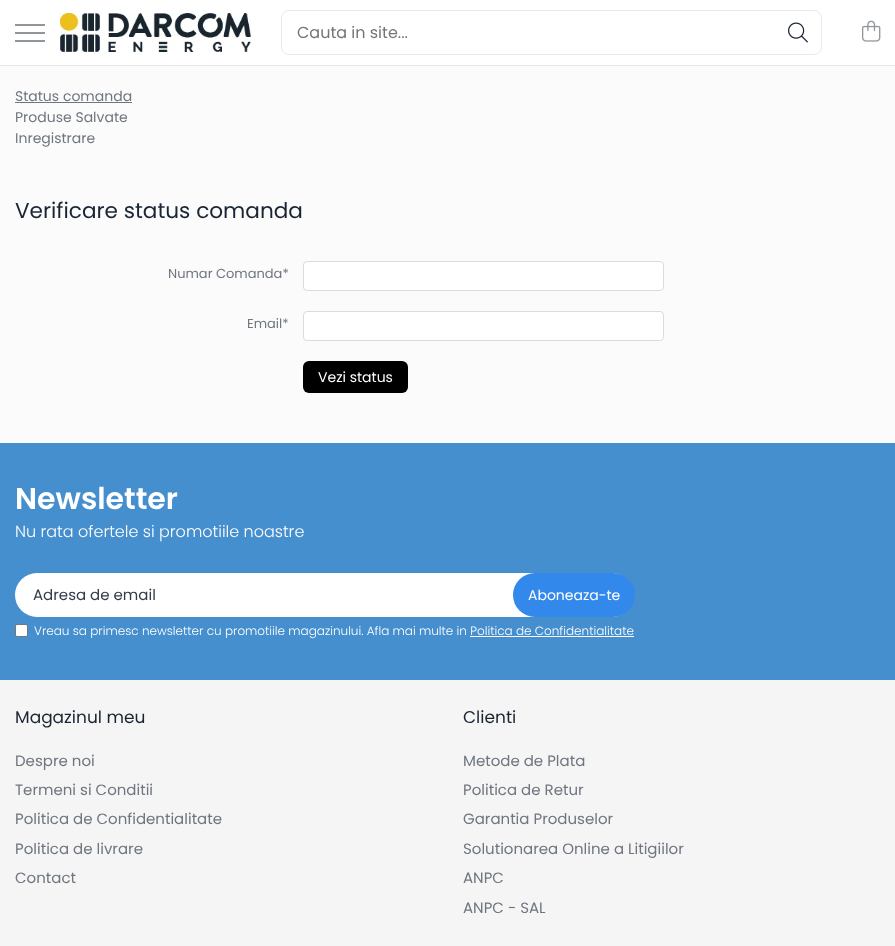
<svg xmlns="http://www.w3.org/2000/svg" width="895" height="946">
	<rect width="100%" height="100%" fill="#FBFBFB" />
	<rect x="0" y="0" width="895" height="65" fill="#FFFFFF" />
	<rect x="0" y="65" width="895" height="1" fill="#E5E6E8" />
	<rect x="15" y="32" width="30" height="2" fill="#91969B" />
	<rect x="15" y="24" width="30" height="2" fill="#91969B" />
	<rect x="15" y="40" width="30" height="2" fill="#91969B" />
	<image x="60" y="13" width="191" height="39" href="assets/img1.png" />
	<rect x="281.5" y="10.5" width="540" height="44" rx="7.5" fill="none" stroke="#E8E9EB" />
	<text x="297" y="38" font-family="Poppins" font-size="16" fill="#757575">Cauta in site...</text>
	<image x="788" y="22" width="20" height="21" href="assets/img2.png" />
	<image x="862" y="20" width="19" height="22" href="assets/img3.png" />
	<text x="15" y="101" font-family="Poppins" font-size="14" fill="#6F767F">Status comanda</text>
	<rect x="15" y="102" width="117" height="1" fill="#6F767F" />
	<g font-family="Poppins" font-size="14" fill="#6F767F">
		<text x="15" y="122">Produse Salvate</text>
		<text x="15" y="143">Inregistrare</text>
	</g>
	<text x="15" y="218" font-family="Poppins" font-size="21.6" fill="#1A2534">Verificare status comanda</text>
	<text x="168" y="278" font-family="Poppins" font-size="13" fill="#6F767F">Numar Comanda*</text>
	<rect x="303.5" y="261.5" width="360" height="29" rx="3.5" fill="#FFFFFF" stroke="#DBDBDB" />
	<text x="247" y="328" font-family="Poppins" font-size="13" fill="#6F767F">Email*</text>
	<rect x="303.5" y="311.5" width="360" height="29" rx="3.5" fill="#FFFFFF" stroke="#DBDBDB" />
	<rect x="303" y="361" width="105" height="32" rx="6" fill="#000000" />
	<text x="318" y="382" font-family="Poppins" font-size="14" fill="#FFFFFF">Vezi status</text>
	<rect x="0" y="443" width="895" height="237" fill="#468FCE" />
	<text x="15" y="509" font-family="Poppins" font-size="30" font-weight="600" fill="#FFFFFF">Newsletter</text>
	<text x="15" y="537" font-family="Poppins" font-size="16" font-weight="300" fill="#FFFFFF">Nu rata ofertele si promotiile noastre</text>
	<rect x="15" y="573" width="619" height="44" rx="22" fill="#FFFFFF" />
	<text x="33" y="600" font-family="Poppins" font-size="15" fill="#323C49">Adresa de email</text>
	<rect x="513" y="573" width="122" height="44" rx="22" fill="#3388EB" />
	<text x="528" y="600" font-family="Poppins" font-size="14" fill="#FFFFFF">Aboneaza-te</text>
	<rect x="15.5" y="624.5" width="12" height="12" rx="1.5" fill="#FFFFFF" stroke="#767676" />
	<text x="34" y="635" font-family="Poppins" font-size="12" font-weight="300" fill="#FFFFFF">Vreau sa primesc newsletter cu promotiile magazinului. Afla mai multe in Politica de Confidentialitate</text>
	<rect x="470" y="636" width="164" height="1" fill="#FFFFFF" />
	<rect x="0" y="680" width="895" height="266" fill="#F5F5F5" />
	<text x="15" y="723" font-family="Poppins" font-size="17" fill="#1A2534">Magazinul meu</text>
	<g font-family="Poppins" font-size="15" fill="#6F767F">
		<text x="15" y="766">Despre noi</text>
		<text x="15" y="795">Termeni si Conditii</text>
		<text x="15" y="824">Politica de Confidentialitate</text>
		<text x="15" y="854">Politica de livrare</text>
		<text x="15" y="883">Contact</text>
	</g>
	<text x="463" y="723" font-family="Poppins" font-size="17" fill="#1A2534">Clienti</text>
	<g font-family="Poppins" font-size="15" fill="#6F767F">
		<text x="463" y="766">Metode de Plata</text>
		<text x="463" y="795">Politica de Retur</text>
		<text x="463" y="824">Garantia Produselor</text>
		<text x="463" y="854">Solutionarea Online a Litigiilor</text>
		<text x="463" y="883">ANPC</text>
		<text x="463" y="913">ANPC - SAL</text>
	</g>
</svg>
